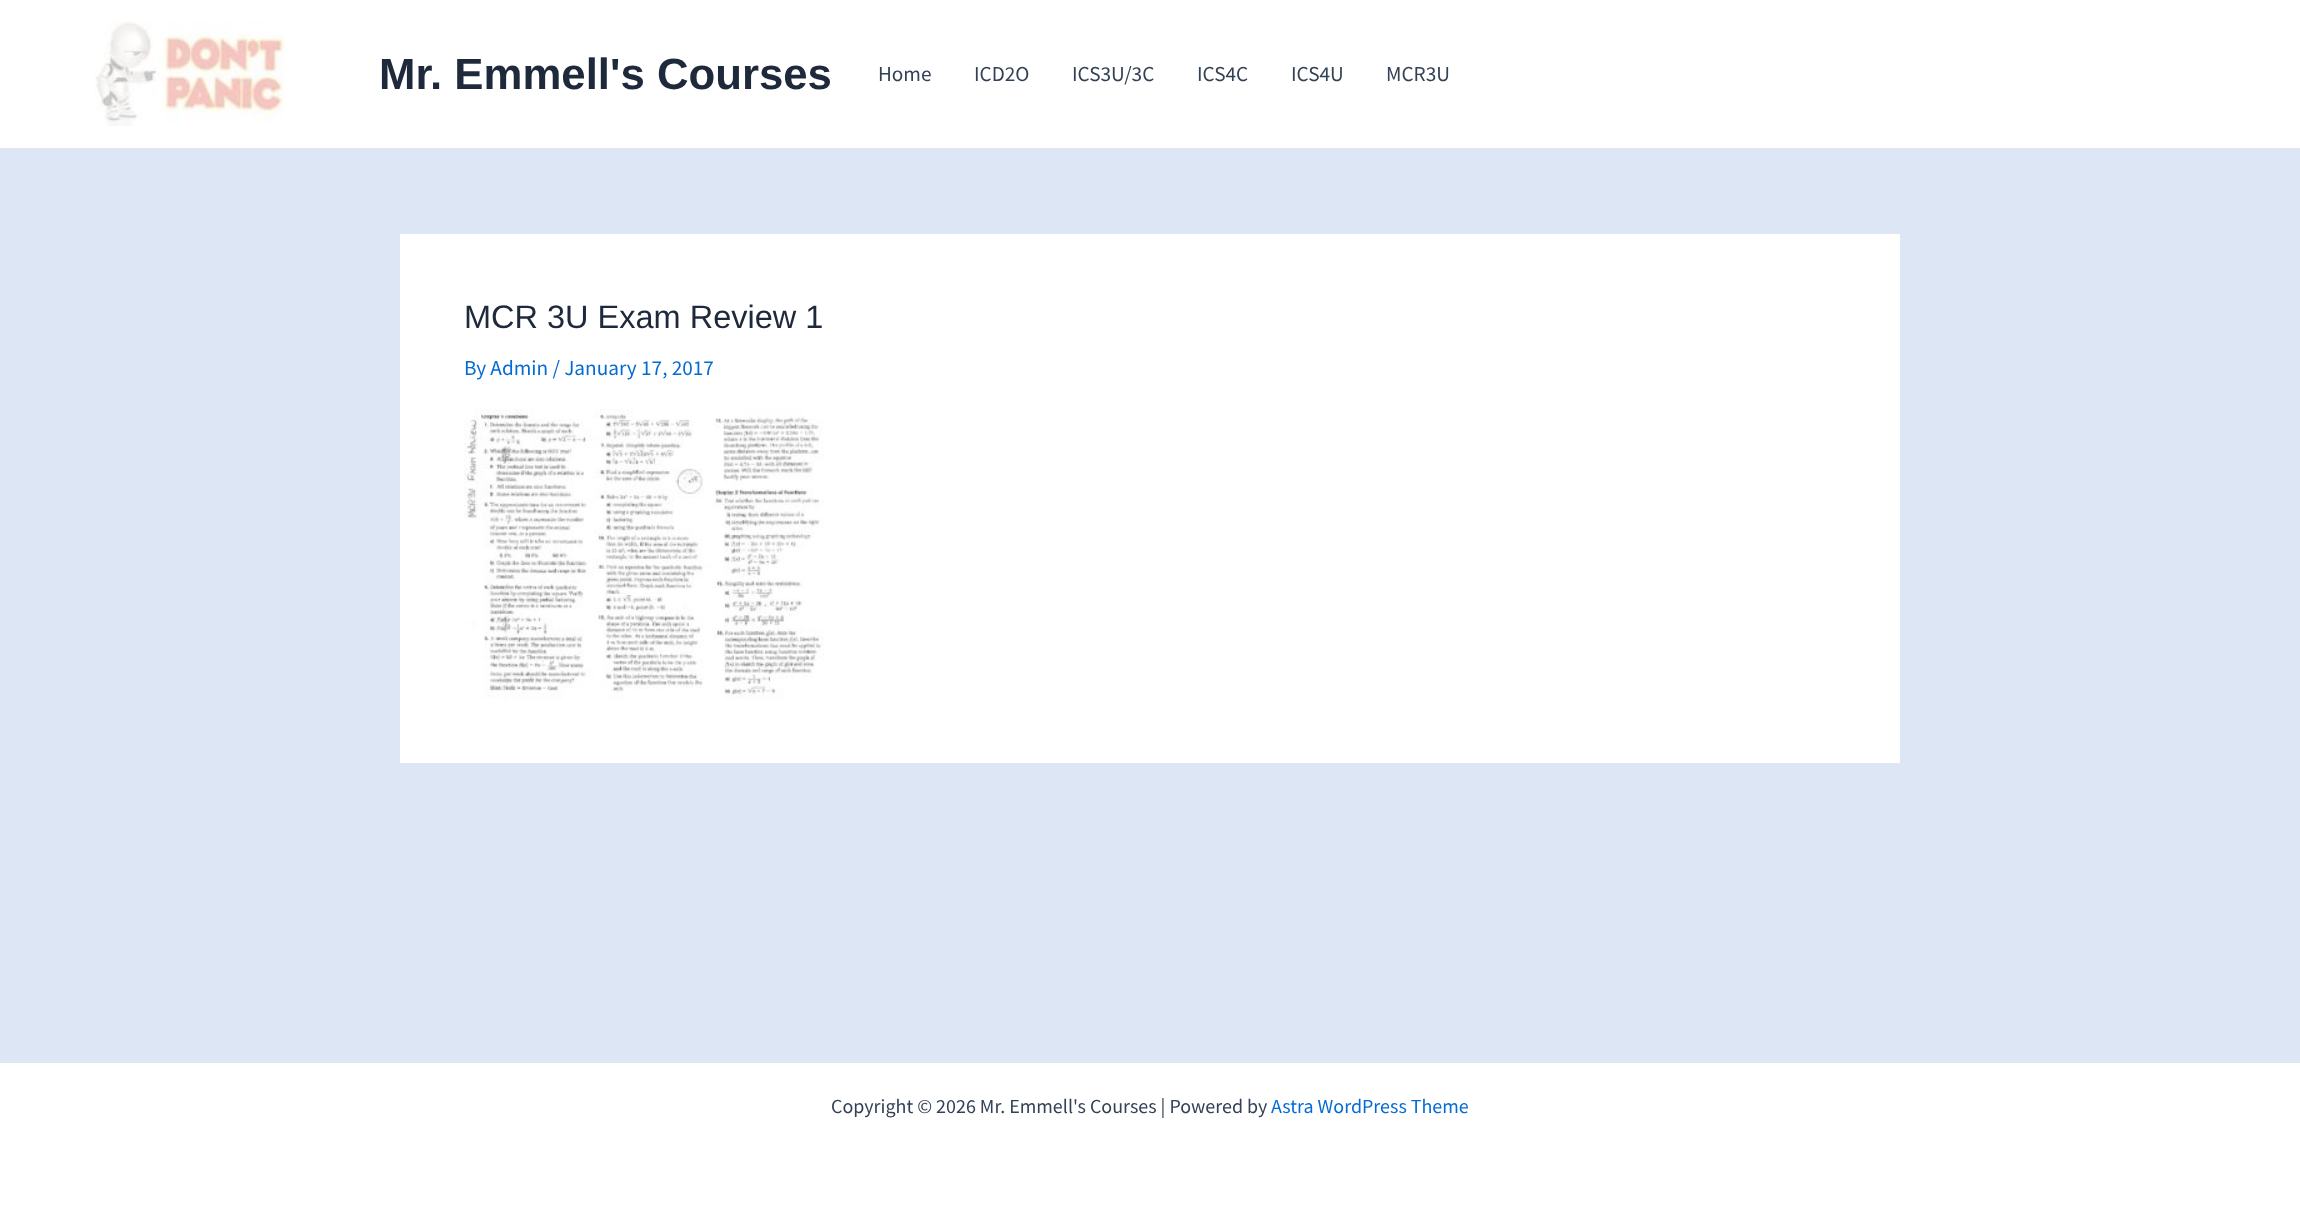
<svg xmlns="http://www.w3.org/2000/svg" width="2300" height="1212">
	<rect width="100%" height="100%" fill="#DCE6F4" />
	<rect x="0" y="0" width="2300" height="148" fill="#FFFFFF" />
	<rect x="0" y="148" width="2300" height="1" fill="#E2E8F0" />
	<image x="95" y="21" width="190" height="105" href="assets/img1.png" />
	<text x="379" y="89" font-family="Liberation Sans" font-size="43.75" font-weight="700" fill="#1E293B">Mr. Emmell's Courses</text>
	<g font-family="Source Sans Pro" font-size="21.25" fill="#334155">
		<text x="878" y="81">Home</text>
		<text x="974" y="81">ICD2O</text>
		<text x="1072" y="81">ICS3U/3C</text>
		<text x="1197" y="81">ICS4C</text>
		<text x="1291" y="81">ICS4U</text>
		<text x="1386" y="81">MCR3U</text>
	</g>
	<rect x="400" y="234" width="1500" height="529" fill="#FFFFFF" />
	<text x="464" y="328" font-family="Liberation Sans" font-size="32.5" fill="#1E293B">MCR 3U Exam Review 1</text>
	<text x="464" y="375" font-family="Source Sans Pro" font-size="21.25" fill="#046BD2">By Admin / January 17, 2017</text>
	<image x="464" y="409" width="360" height="290" href="assets/img2.png" />
	<rect x="0" y="1063" width="2300" height="149" fill="#FFFFFF" />
	<rect x="0" y="1061" width="2300" height="1" fill="#E2E8F0" />
	<text x="831" y="1113" font-family="Source Sans Pro" font-size="20" fill="#334155">Copyright © 2026 Mr. Emmell's Courses | Powered by</text>
	<text x="1271" y="1113" font-family="Source Sans Pro" font-size="20" fill="#046BD2">Astra WordPress Theme</text>
</svg>
